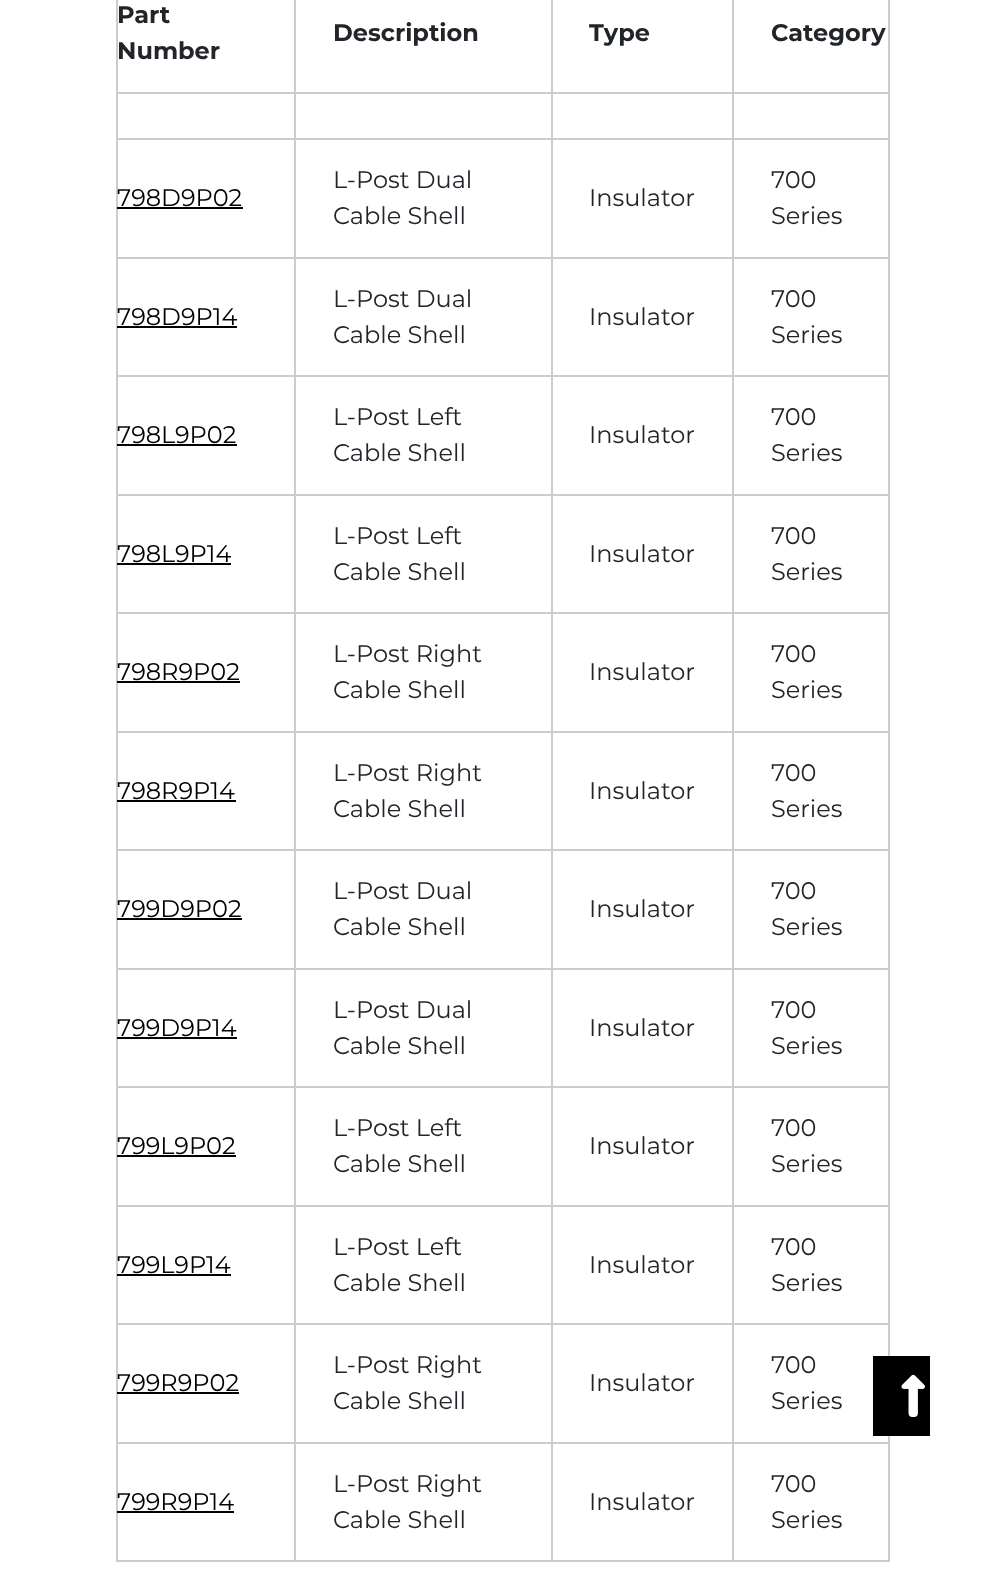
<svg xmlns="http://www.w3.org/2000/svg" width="1004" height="1577">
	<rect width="100%" height="100%" fill="#FFFFFF" />
	<rect x="732" y="92" width="158" height="2" fill="#CCCCCC" />
	<rect x="732" y="138" width="158" height="2" fill="#CCCCCC" />
	<rect x="732" y="257" width="158" height="2" fill="#CCCCCC" />
	<rect x="732" y="375" width="158" height="2" fill="#CCCCCC" />
	<rect x="732" y="494" width="158" height="2" fill="#CCCCCC" />
	<rect x="732" y="612" width="158" height="2" fill="#CCCCCC" />
	<rect x="732" y="731" width="158" height="2" fill="#CCCCCC" />
	<rect x="732" y="849" width="158" height="2" fill="#CCCCCC" />
	<rect x="732" y="968" width="158" height="2" fill="#CCCCCC" />
	<rect x="732" y="1086" width="158" height="2" fill="#CCCCCC" />
	<rect x="732" y="1205" width="158" height="2" fill="#CCCCCC" />
	<rect x="732" y="1323" width="158" height="2" fill="#CCCCCC" />
	<rect x="732" y="1442" width="158" height="2" fill="#CCCCCC" />
	<rect x="888" y="1442" width="2" height="120" fill="#CCCCCC" />
	<rect x="732" y="1560" width="158" height="2" fill="#CCCCCC" />
	<rect x="732" y="1442" width="2" height="120" fill="#CCCCCC" />
	<rect x="551" y="1442" width="183" height="2" fill="#CCCCCC" />
	<rect x="732" y="1323" width="2" height="120" fill="#CCCCCC" />
	<rect x="551" y="1323" width="183" height="2" fill="#CCCCCC" />
	<rect x="732" y="1205" width="2" height="120" fill="#CCCCCC" />
	<rect x="551" y="1205" width="183" height="2" fill="#CCCCCC" />
	<rect x="732" y="1086" width="2" height="120" fill="#CCCCCC" />
	<rect x="551" y="1086" width="183" height="2" fill="#CCCCCC" />
	<rect x="732" y="968" width="2" height="120" fill="#CCCCCC" />
	<rect x="551" y="968" width="183" height="2" fill="#CCCCCC" />
	<rect x="732" y="849" width="2" height="120" fill="#CCCCCC" />
	<rect x="551" y="849" width="183" height="2" fill="#CCCCCC" />
	<rect x="732" y="731" width="2" height="120" fill="#CCCCCC" />
	<rect x="551" y="731" width="183" height="2" fill="#CCCCCC" />
	<rect x="732" y="612" width="2" height="120" fill="#CCCCCC" />
	<rect x="551" y="612" width="183" height="2" fill="#CCCCCC" />
	<rect x="732" y="494" width="2" height="120" fill="#CCCCCC" />
	<rect x="551" y="494" width="183" height="2" fill="#CCCCCC" />
	<rect x="732" y="375" width="2" height="120" fill="#CCCCCC" />
	<rect x="551" y="375" width="183" height="2" fill="#CCCCCC" />
	<rect x="732" y="257" width="2" height="120" fill="#CCCCCC" />
	<rect x="551" y="257" width="183" height="2" fill="#CCCCCC" />
	<rect x="732" y="138" width="2" height="120" fill="#CCCCCC" />
	<rect x="551" y="138" width="183" height="2" fill="#CCCCCC" />
	<rect x="732" y="92" width="2" height="48" fill="#CCCCCC" />
	<rect x="551" y="92" width="183" height="2" fill="#CCCCCC" />
	<rect x="551" y="1560" width="183" height="2" fill="#CCCCCC" />
	<rect x="551" y="1442" width="2" height="120" fill="#CCCCCC" />
	<rect x="294" y="1442" width="258" height="2" fill="#CCCCCC" />
	<rect x="551" y="1323" width="2" height="120" fill="#CCCCCC" />
	<rect x="294" y="1323" width="258" height="2" fill="#CCCCCC" />
	<rect x="551" y="1205" width="2" height="120" fill="#CCCCCC" />
	<rect x="294" y="1205" width="258" height="2" fill="#CCCCCC" />
	<rect x="551" y="1086" width="2" height="120" fill="#CCCCCC" />
	<rect x="294" y="1086" width="258" height="2" fill="#CCCCCC" />
	<rect x="551" y="968" width="2" height="120" fill="#CCCCCC" />
	<rect x="294" y="968" width="258" height="2" fill="#CCCCCC" />
	<rect x="551" y="849" width="2" height="120" fill="#CCCCCC" />
	<rect x="294" y="849" width="258" height="2" fill="#CCCCCC" />
	<rect x="551" y="731" width="2" height="120" fill="#CCCCCC" />
	<rect x="294" y="731" width="258" height="2" fill="#CCCCCC" />
	<rect x="551" y="612" width="2" height="120" fill="#CCCCCC" />
	<rect x="294" y="612" width="258" height="2" fill="#CCCCCC" />
	<rect x="551" y="494" width="2" height="120" fill="#CCCCCC" />
	<rect x="294" y="494" width="258" height="2" fill="#CCCCCC" />
	<rect x="551" y="375" width="2" height="120" fill="#CCCCCC" />
	<rect x="294" y="375" width="258" height="2" fill="#CCCCCC" />
	<rect x="551" y="257" width="2" height="120" fill="#CCCCCC" />
	<rect x="294" y="257" width="258" height="2" fill="#CCCCCC" />
	<rect x="551" y="138" width="2" height="120" fill="#CCCCCC" />
	<rect x="294" y="138" width="258" height="2" fill="#CCCCCC" />
	<rect x="551" y="92" width="2" height="48" fill="#CCCCCC" />
	<rect x="294" y="92" width="258" height="2" fill="#CCCCCC" />
	<rect x="294" y="1560" width="258" height="2" fill="#CCCCCC" />
	<rect x="294" y="1442" width="2" height="120" fill="#CCCCCC" />
	<rect x="116" y="1442" width="180" height="2" fill="#CCCCCC" />
	<rect x="294" y="1323" width="2" height="120" fill="#CCCCCC" />
	<rect x="116" y="1323" width="180" height="2" fill="#CCCCCC" />
	<rect x="294" y="1205" width="2" height="120" fill="#CCCCCC" />
	<rect x="116" y="1205" width="180" height="2" fill="#CCCCCC" />
	<rect x="294" y="1086" width="2" height="120" fill="#CCCCCC" />
	<rect x="116" y="1086" width="180" height="2" fill="#CCCCCC" />
	<rect x="294" y="968" width="2" height="120" fill="#CCCCCC" />
	<rect x="116" y="968" width="180" height="2" fill="#CCCCCC" />
	<rect x="294" y="849" width="2" height="120" fill="#CCCCCC" />
	<rect x="116" y="849" width="180" height="2" fill="#CCCCCC" />
	<rect x="294" y="731" width="2" height="120" fill="#CCCCCC" />
	<rect x="116" y="731" width="180" height="2" fill="#CCCCCC" />
	<rect x="294" y="612" width="2" height="120" fill="#CCCCCC" />
	<rect x="116" y="612" width="180" height="2" fill="#CCCCCC" />
	<rect x="294" y="494" width="2" height="120" fill="#CCCCCC" />
	<rect x="116" y="494" width="180" height="2" fill="#CCCCCC" />
	<rect x="294" y="375" width="2" height="120" fill="#CCCCCC" />
	<rect x="116" y="375" width="180" height="2" fill="#CCCCCC" />
	<rect x="294" y="257" width="2" height="120" fill="#CCCCCC" />
	<rect x="116" y="257" width="180" height="2" fill="#CCCCCC" />
	<rect x="294" y="138" width="2" height="120" fill="#CCCCCC" />
	<rect x="116" y="138" width="180" height="2" fill="#CCCCCC" />
	<rect x="294" y="92" width="2" height="48" fill="#CCCCCC" />
	<rect x="116" y="92" width="180" height="2" fill="#CCCCCC" />
	<rect x="116" y="1560" width="180" height="2" fill="#CCCCCC" />
	<rect x="116" y="1442" width="2" height="120" fill="#CCCCCC" />
	<rect x="116" y="1323" width="2" height="120" fill="#CCCCCC" />
	<rect x="116" y="1205" width="2" height="120" fill="#CCCCCC" />
	<rect x="116" y="1086" width="2" height="120" fill="#CCCCCC" />
	<rect x="116" y="968" width="2" height="120" fill="#CCCCCC" />
	<rect x="116" y="849" width="2" height="120" fill="#CCCCCC" />
	<rect x="116" y="731" width="2" height="120" fill="#CCCCCC" />
	<rect x="116" y="612" width="2" height="120" fill="#CCCCCC" />
	<rect x="116" y="494" width="2" height="120" fill="#CCCCCC" />
	<rect x="116" y="375" width="2" height="120" fill="#CCCCCC" />
	<rect x="116" y="257" width="2" height="120" fill="#CCCCCC" />
	<rect x="116" y="138" width="2" height="120" fill="#CCCCCC" />
	<rect x="116" y="0" width="2" height="140" fill="#CCCCCC" />
	<rect x="888" y="1323" width="2" height="120" fill="#CCCCCC" />
	<rect x="888" y="1205" width="2" height="120" fill="#CCCCCC" />
	<rect x="888" y="1086" width="2" height="120" fill="#CCCCCC" />
	<rect x="888" y="968" width="2" height="120" fill="#CCCCCC" />
	<rect x="888" y="849" width="2" height="120" fill="#CCCCCC" />
	<rect x="888" y="731" width="2" height="120" fill="#CCCCCC" />
	<rect x="888" y="612" width="2" height="120" fill="#CCCCCC" />
	<rect x="888" y="494" width="2" height="120" fill="#CCCCCC" />
	<rect x="888" y="375" width="2" height="120" fill="#CCCCCC" />
	<rect x="888" y="257" width="2" height="120" fill="#CCCCCC" />
	<rect x="888" y="138" width="2" height="120" fill="#CCCCCC" />
	<rect x="888" y="0" width="2" height="140" fill="#CCCCCC" />
	<g font-family="Montserrat" font-size="24" font-weight="700" fill="#212529">
		<text x="117" y="23">Part</text>
		<text x="117" y="59">Number</text>
	</g>
	<rect x="294" y="0" width="2" height="93" fill="#CCCCCC" />
	<text x="333" y="41" font-family="Montserrat" font-size="24" font-weight="700" fill="#212529">Description</text>
	<rect x="551" y="0" width="2" height="93" fill="#CCCCCC" />
	<text x="589" y="41" font-family="Montserrat" font-size="24" font-weight="700" fill="#212529">Type</text>
	<rect x="732" y="0" width="2" height="93" fill="#CCCCCC" />
	<text x="771" y="41" font-family="Montserrat" font-size="24" font-weight="700" fill="#212529">Category</text>
	<text x="117" y="206" font-family="Montserrat" font-size="24" fill="#000000">798D9P02</text>
	<rect x="117" y="207" width="126" height="2" fill="#000000" />
	<g font-family="Montserrat" font-size="24" fill="#212529">
		<text x="333" y="188">L-Post Dual</text>
		<text x="333" y="224">Cable Shell</text>
		<text x="589" y="206">Insulator</text>
		<text x="771" y="188">700</text>
		<text x="771" y="224">Series</text>
	</g>
	<text x="117" y="325" font-family="Montserrat" font-size="24" fill="#000000">798D9P14</text>
	<rect x="117" y="326" width="120" height="2" fill="#000000" />
	<g font-family="Montserrat" font-size="24" fill="#212529">
		<text x="333" y="307">L-Post Dual</text>
		<text x="333" y="343">Cable Shell</text>
		<text x="589" y="325">Insulator</text>
		<text x="771" y="307">700</text>
		<text x="771" y="343">Series</text>
	</g>
	<text x="117" y="443" font-family="Montserrat" font-size="24" fill="#000000">798L9P02</text>
	<rect x="117" y="444" width="120" height="2" fill="#000000" />
	<g font-family="Montserrat" font-size="24" fill="#212529">
		<text x="333" y="425">L-Post Left</text>
		<text x="333" y="461">Cable Shell</text>
		<text x="589" y="443">Insulator</text>
		<text x="771" y="425">700</text>
		<text x="771" y="461">Series</text>
	</g>
	<text x="117" y="562" font-family="Montserrat" font-size="24" fill="#000000">798L9P14</text>
	<rect x="117" y="563" width="114" height="2" fill="#000000" />
	<g font-family="Montserrat" font-size="24" fill="#212529">
		<text x="333" y="544">L-Post Left</text>
		<text x="333" y="580">Cable Shell</text>
		<text x="589" y="562">Insulator</text>
		<text x="771" y="544">700</text>
		<text x="771" y="580">Series</text>
	</g>
	<text x="117" y="680" font-family="Montserrat" font-size="24" fill="#000000">798R9P02</text>
	<rect x="117" y="681" width="123" height="2" fill="#000000" />
	<g font-family="Montserrat" font-size="24" fill="#212529">
		<text x="333" y="662">L-Post Right</text>
		<text x="333" y="698">Cable Shell</text>
		<text x="589" y="680">Insulator</text>
		<text x="771" y="662">700</text>
		<text x="771" y="698">Series</text>
	</g>
	<text x="117" y="799" font-family="Montserrat" font-size="24" fill="#000000">798R9P14</text>
	<rect x="117" y="800" width="119" height="2" fill="#000000" />
	<g font-family="Montserrat" font-size="24" fill="#212529">
		<text x="333" y="781">L-Post Right</text>
		<text x="333" y="817">Cable Shell</text>
		<text x="589" y="799">Insulator</text>
		<text x="771" y="781">700</text>
		<text x="771" y="817">Series</text>
	</g>
	<text x="117" y="917" font-family="Montserrat" font-size="24" fill="#000000">799D9P02</text>
	<rect x="117" y="918" width="125" height="2" fill="#000000" />
	<g font-family="Montserrat" font-size="24" fill="#212529">
		<text x="333" y="899">L-Post Dual</text>
		<text x="333" y="935">Cable Shell</text>
		<text x="589" y="917">Insulator</text>
		<text x="771" y="899">700</text>
		<text x="771" y="935">Series</text>
	</g>
	<text x="117" y="1036" font-family="Montserrat" font-size="24" fill="#000000">799D9P14</text>
	<rect x="117" y="1037" width="120" height="2" fill="#000000" />
	<g font-family="Montserrat" font-size="24" fill="#212529">
		<text x="333" y="1018">L-Post Dual</text>
		<text x="333" y="1054">Cable Shell</text>
		<text x="589" y="1036">Insulator</text>
		<text x="771" y="1018">700</text>
		<text x="771" y="1054">Series</text>
	</g>
	<text x="117" y="1154" font-family="Montserrat" font-size="24" fill="#000000">799L9P02</text>
	<rect x="117" y="1155" width="119" height="2" fill="#000000" />
	<g font-family="Montserrat" font-size="24" fill="#212529">
		<text x="333" y="1136">L-Post Left</text>
		<text x="333" y="1172">Cable Shell</text>
		<text x="589" y="1154">Insulator</text>
		<text x="771" y="1136">700</text>
		<text x="771" y="1172">Series</text>
	</g>
	<text x="117" y="1273" font-family="Montserrat" font-size="24" fill="#000000">799L9P14</text>
	<rect x="117" y="1274" width="114" height="2" fill="#000000" />
	<g font-family="Montserrat" font-size="24" fill="#212529">
		<text x="333" y="1255">L-Post Left</text>
		<text x="333" y="1291">Cable Shell</text>
		<text x="589" y="1273">Insulator</text>
		<text x="771" y="1255">700</text>
		<text x="771" y="1291">Series</text>
	</g>
	<text x="117" y="1391" font-family="Montserrat" font-size="24" fill="#000000">799R9P02</text>
	<rect x="117" y="1392" width="122" height="2" fill="#000000" />
	<g font-family="Montserrat" font-size="24" fill="#212529">
		<text x="333" y="1373">L-Post Right</text>
		<text x="333" y="1409">Cable Shell</text>
		<text x="589" y="1391">Insulator</text>
		<text x="771" y="1373">700</text>
		<text x="771" y="1409">Series</text>
	</g>
	<text x="117" y="1510" font-family="Montserrat" font-size="24" fill="#000000">799R9P14</text>
	<rect x="117" y="1511" width="117" height="2" fill="#000000" />
	<g font-family="Montserrat" font-size="24" fill="#212529">
		<text x="333" y="1492">L-Post Right</text>
		<text x="333" y="1528">Cable Shell</text>
		<text x="589" y="1510">Insulator</text>
		<text x="771" y="1492">700</text>
		<text x="771" y="1528">Series</text>
	</g>
	<rect x="873" y="1356" width="57" height="80" fill="#000000" />
	<image x="901" y="1374" width="24" height="43" href="assets/img1.png" />
</svg>
